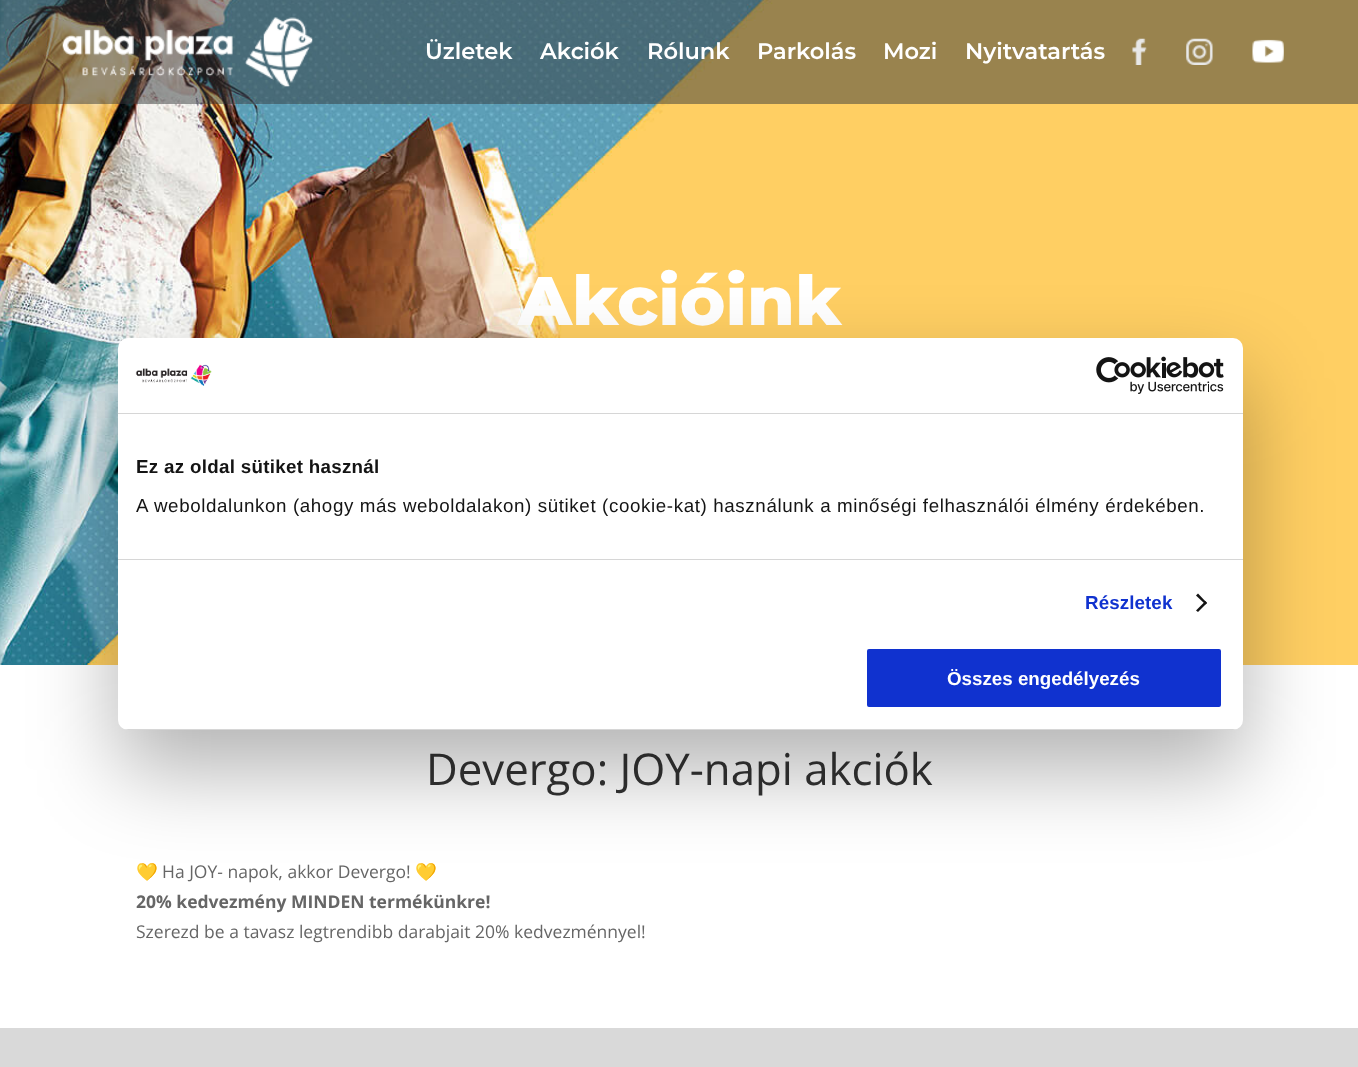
<svg xmlns="http://www.w3.org/2000/svg" width="1358" height="1067">
	<defs>
		<clipPath id="clip1"><rect x="118" y="338" width="1125" height="392" rx="10" /></clipPath>
	</defs>
	<rect width="100%" height="100%" fill="#FFFFFF" />
	<image x="0" y="0" width="1358" height="665" href="assets/img5.png" />
	<rect x="0" y="0" width="1358" height="104" fill="#33373A" fill-opacity="0.5" />
	<image x="62" y="17" width="251" height="70" href="assets/img1.png" />
	<g font-family="'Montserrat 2'" font-size="22.5" font-weight="100" fill="#FFFFFF">
		<text x="425" y="59">Üzletek</text>
		<text x="540" y="59">Akciók</text>
		<text x="647" y="59">Rólunk</text>
		<text x="757" y="59">Parkolás</text>
		<text x="883" y="59">Mozi</text>
		<text x="965" y="59">Nyitvatartás</text>
	</g>
	<image x="1132" y="38" width="15" height="27" href="assets/img2.png" />
	<image x="1186" y="38" width="27" height="27" href="assets/img3.png" />
	<image x="1252" y="39" width="32" height="24" href="assets/img4.png" />
	<text x="518" y="325" font-family="Montserrat" font-size="68.75" font-weight="100" fill="#FFFFFF">Akcióink</text>
	<text x="426" y="785" font-family="Open Sans" font-size="43.75" fill="#333333">Devergo: JOY-napi akciók</text>
	<text x="136" y="878" font-family="Noto Color Emoji" font-size="17.5" fill="#666666">💛</text>
	<text x="162" y="878" font-family="Open Sans" font-size="17.5" fill="#666666">Ha JOY- napok, akkor Devergo!</text>
	<text x="415" y="878" font-family="Noto Color Emoji" font-size="17.5" fill="#666666">💛</text>
	<text x="136" y="908" font-family="Open Sans" font-size="17.5" font-weight="700" fill="#666666">20% kedvezmény MINDEN termékünkre!</text>
	<text x="136" y="938" font-family="Open Sans" font-size="17.5" fill="#666666">Szerezd be a tavasz legtrendibb darabjait 20% kedvezménnyel!</text>
	<rect x="0" y="1028" width="1358" height="39" fill="#D9D9D9" />
	<rect x="118" y="378" width="1125" height="392" rx="10" fill="#000000" fill-opacity="0.3" filter="blur(42.5px)" />
	<rect x="118" y="338" width="1125" height="392" rx="10" fill="#FFFFFF" />
	<rect x="118" y="413" width="1125" height="1" fill="#D6D6D6" />
	<image x="135" y="364" width="77" height="22" href="assets/img6.png" />
	<image x="1096" y="356" width="128" height="38" href="assets/img7.png" />
	<rect x="118" y="559" width="1125" height="1" fill="#D6D6D6" />
	<text x="136" y="473" font-family="Liberation Sans" font-size="18.75" font-weight="700" letter-spacing="0.3" fill="#141414">Ez az oldal sütiket használ</text>
	<text x="136" y="512" font-family="Liberation Sans" font-size="18.75" letter-spacing="0.62" fill="#141414">A weboldalunkon (ahogy más weboldalakon) sütiket (cookie-kat) használunk a minőségi felhasználói élmény érdekében.</text>
	<text x="1085" y="609" font-family="Liberation Sans" font-size="18.75" font-weight="700" letter-spacing="0.1" fill="#1032CF">Részletek</text>
	<path d="M1198 593.5L1207 603L1205.5 604.5L1196 595.5Z" fill="#141414" />
	<path d="M1205.5 601L1207 603L1198 612L1196 610.5Z" fill="#141414" />
	<g clip-path="url(#clip1)">
		<rect x="118" y="729" width="1125" height="1" fill="#D6D6D6" />
	</g>
	<rect x="865.5" y="647.5" width="357" height="61" rx="3.5" fill="#1032CF" stroke="#FFFFFF" stroke-width="3" />
	<text x="947" y="685" font-family="Liberation Sans" font-size="18.75" font-weight="700" fill="#FFFFFF">Összes engedélyezés</text>
</svg>
